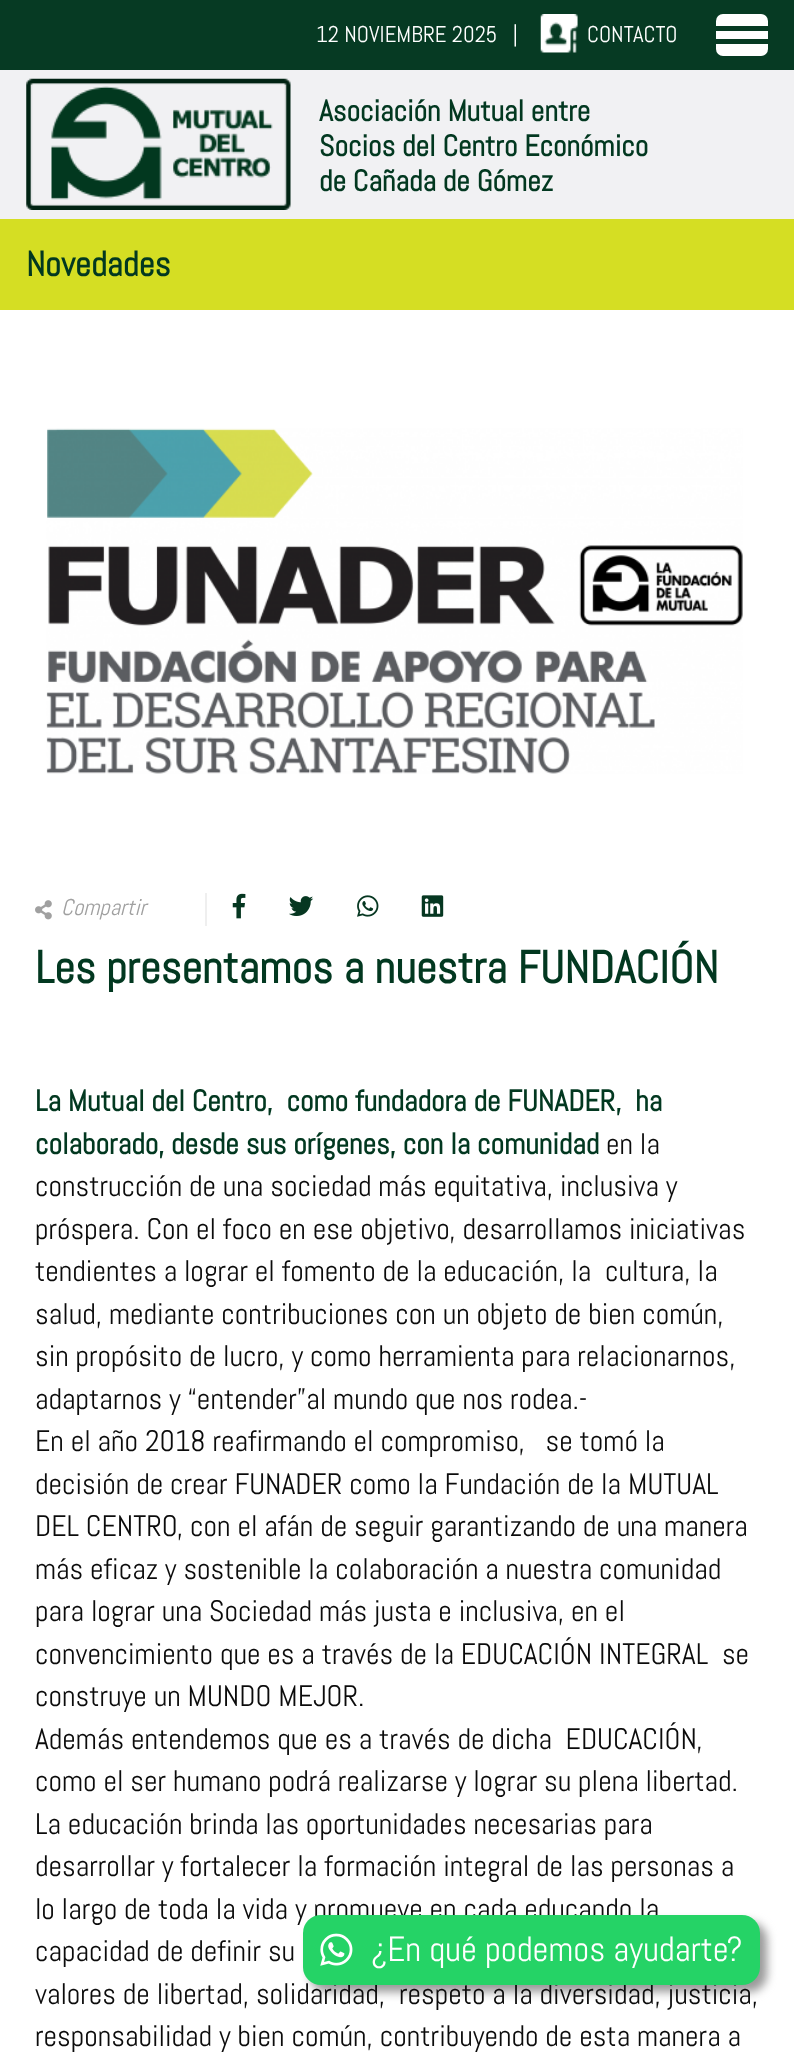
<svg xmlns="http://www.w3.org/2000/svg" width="794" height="2053">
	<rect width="100%" height="100%" fill="#FFFFFF" />
	<rect x="0" y="0" width="794" height="70" fill="#063A23" />
	<rect x="0" y="70" width="794" height="149" fill="#F1F1F3" />
	<text x="316" y="42" font-family="Abel" font-size="22.75" fill="#FFFFFF" xml:space="preserve">12 NOVIEMBRE 2025   |</text>
	<image x="540" y="14" width="38" height="39" href="assets/img1.png" />
	<text x="587" y="42" font-family="Abel" font-size="22.75" fill="#FFFFFF">CONTACTO</text>
	<rect x="716" y="14" width="52" height="42" rx="7" fill="#FFFFFF" />
	<rect x="716" y="26" width="52" height="5" fill="#063A23" />
	<rect x="716" y="39" width="52" height="5" fill="#063A23" />
	<image x="26" y="78" width="265" height="132" href="assets/img2.png" />
	<g font-family="Abel" font-size="29.75" font-weight="700" fill="#023820">
		<text x="319" y="121">Asociación Mutual entre</text>
		<text x="319" y="156">Socios del Centro Económico</text>
		<text x="319" y="191">de Cañada de Gómez</text>
	</g>
	<rect x="0" y="219" width="794" height="91" fill="#D5DE23" />
	<text x="26" y="276" font-family="Abel" font-size="35" font-weight="700" fill="#023820">Novedades</text>
	<rect x="310" y="1922" width="457" height="70" rx="18" fill="#999999" filter="blur(5px)" />
	<g font-family="Abel" font-size="29.75" fill="#0B0B0B">
		<text x="35" y="1919">lo largo de toda la vida y promueve en cada educando la</text>
		<text x="35" y="2004" xml:space="preserve">valores de libertad, solidaridad,  respeto a la diversidad, justicia,</text>
	</g>
	<rect x="303" y="1915" width="457" height="70" rx="18" fill="#25D366" />
	<image x="320" y="1933" width="33" height="33" href="assets/img3.png" />
	<text x="371" y="1961" font-family="Abel" font-size="35" fill="#FFFFFF">¿En qué podemos ayudarte?</text>
	<image x="46" y="428" width="697" height="346" href="assets/img4.png" />
	<image x="35" y="900" width="17" height="20" href="assets/img5.png" />
	<text x="61" y="915" font-family="Abel" font-size="22.75" font-style="italic" fill="#A0A0A0">Compartir</text>
	<rect x="205" y="893" width="2" height="33" fill="#EFEFEF" />
	<image x="232" y="893" width="14" height="26" href="assets/img6.png" />
	<image x="289" y="896" width="25" height="20" href="assets/img7.png" />
	<image x="357" y="895" width="22" height="22" href="assets/img8.png" />
	<image x="421" y="895" width="23" height="22" href="assets/img9.png" />
	<text x="35" y="983" font-family="Abel" font-size="45.5" font-weight="700" fill="#023820">Les presentamos a nuestra FUNDACIÓN</text>
	<g font-family="Abel" font-size="29.75" font-weight="700" fill="#023820">
		<text x="35" y="1111" xml:space="preserve">La Mutual del Centro,  como fundadora de FUNADER,  ha</text>
		<text x="35" y="1154">colaborado, desde sus orígenes, con la comunidad</text>
	</g>
	<g font-family="Abel" font-size="29.75" fill="#0B0B0B">
		<text x="606" y="1154">en la</text>
		<text x="35" y="1196">construcción de una sociedad más equitativa, inclusiva y</text>
		<text x="35" y="1239">próspera. Con el foco en ese objetivo, desarrollamos iniciativas</text>
		<text x="35" y="1281" xml:space="preserve">tendientes a lograr el fomento de la educación, la  cultura, la</text>
		<text x="35" y="1324">salud, mediante contribuciones con un objeto de bien común,</text>
		<text x="35" y="1366">sin propósito de lucro, y como herramienta para relacionarnos,</text>
		<text x="35" y="1409">adaptarnos y “entender”al mundo que nos rodea.-</text>
		<text x="35" y="1451" xml:space="preserve">En el año 2018 reafirmando el compromiso,   se tomó la</text>
		<text x="35" y="1494">decisión de crear FUNADER como la Fundación de la MUTUAL</text>
		<text x="35" y="1536">DEL CENTRO, con el afán de seguir garantizando de una manera</text>
		<text x="35" y="1579">más eficaz y sostenible la colaboración a nuestra comunidad</text>
		<text x="35" y="1621">para lograr una Sociedad más justa e inclusiva, en el</text>
		<text x="35" y="1664" xml:space="preserve">convencimiento que es a través de la EDUCACIÓN INTEGRAL  se</text>
		<text x="35" y="1706">construye un MUNDO MEJOR.</text>
		<text x="35" y="1749" xml:space="preserve">Además entendemos que es a través de dicha  EDUCACIÓN,</text>
		<text x="35" y="1791">como el ser humano podrá realizarse y lograr su plena libertad.</text>
		<text x="35" y="1834">La educación brinda las oportunidades necesarias para</text>
		<text x="35" y="1876">desarrollar y fortalecer la formación integral de las personas a</text>
		<text x="35" y="1961">capacidad de definir su</text>
		<text x="35" y="2046">responsabilidad y bien común, contribuyendo de esta manera a</text>
	</g>
</svg>
